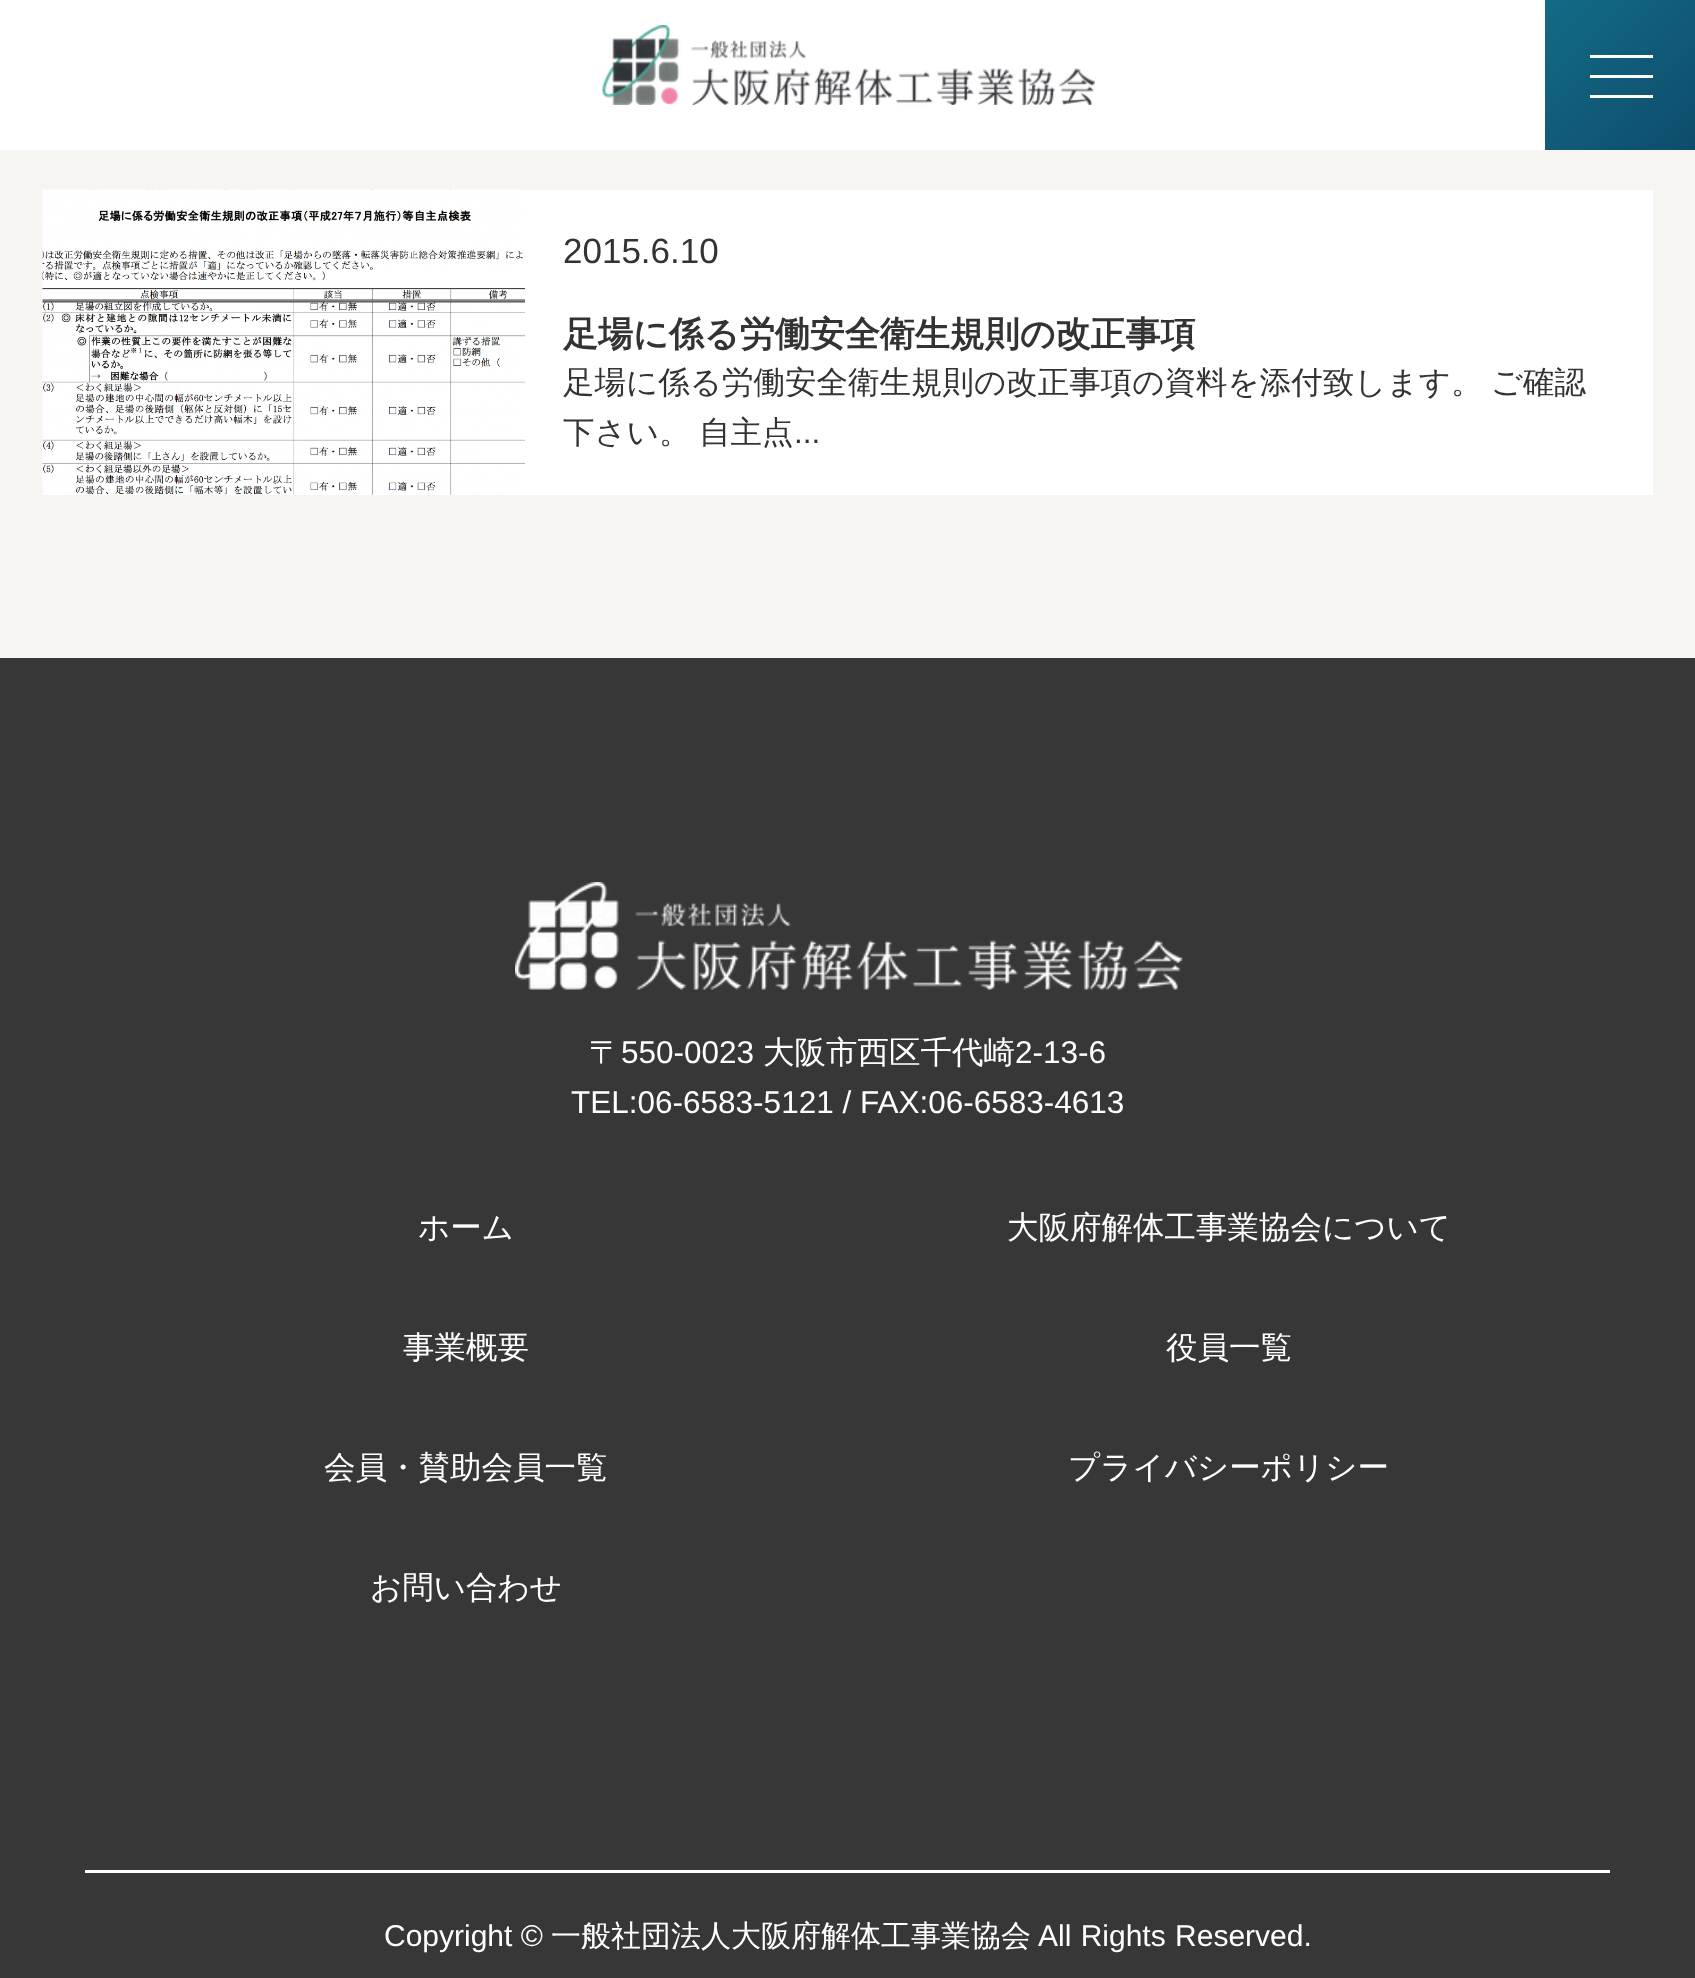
<svg xmlns="http://www.w3.org/2000/svg" width="1695" height="1978">
	<defs>
		<linearGradient id="g1" gradientUnits="userSpaceOnUse" x1="1545" y1="0" x2="1695" y2="150"><stop offset="0" stop-color="#126B86" /><stop offset="1" stop-color="#0E4C6C" /></linearGradient>
	</defs>
	<rect width="100%" height="100%" fill="#F6F5F2" />
	<rect x="0" y="0" width="1545" height="150" fill="#FFFFFF" />
	<image x="602" y="25" width="493" height="80" href="assets/img1.png" />
	<rect x="1545" y="0" width="150" height="150" fill="url(#g1)" />
	<rect x="1590" y="55" width="63" height="3" fill="#FFFFFF" />
	<rect x="1590" y="75" width="63" height="3" fill="#FFFFFF" />
	<rect x="1590" y="95" width="63" height="3" fill="#FFFFFF" />
	<rect x="43" y="190" width="1610" height="305" fill="#FFFFFF" />
	<image x="42" y="189" width="483" height="306" href="assets/img2.png" />
	<text x="563" y="263" font-family="Arimo" font-size="35" fill="#333333">2015.6.10</text>
	<text x="563" y="346" font-family="WenQuanYi Zen Hei" font-size="35" font-weight="700" fill="#333333">足場に係る労働安全衛生規則の改正事項</text>
	<g font-family="WenQuanYi Zen Hei" font-size="31.5" font-weight="500" fill="#333333">
		<text x="563" y="393" word-spacing="-1">足場に係る労働安全衛生規則の改正事項の資料を添付致します。 ご確認</text>
		<text x="563" y="443">下さい。</text>
		<text x="699" y="443">自主点</text>
	</g>
	<text x="794" y="443" font-family="Arimo" font-size="31.5" fill="#333333">...</text>
	<rect x="0" y="658" width="1695" height="1320" fill="#373737" />
	<image x="515" y="882" width="668" height="108" href="assets/img3.png" />
	<text x="589" y="1063" font-family="WenQuanYi Zen Hei" font-size="31.5" font-weight="500" fill="#FFFFFF">〒</text>
	<text x="621" y="1063" font-family="Arimo" font-size="31.5" fill="#FFFFFF">550-0023</text>
	<text x="763" y="1063" font-family="WenQuanYi Zen Hei" font-size="31.5" font-weight="500" fill="#FFFFFF">大阪市西区千代崎</text>
	<g font-family="Arimo" font-size="31.5" fill="#FFFFFF">
		<text x="1015" y="1063">2-13-6</text>
		<text x="571" y="1113">TEL:06-6583-5121 / FAX:06-6583-4613</text>
	</g>
	<g font-family="WenQuanYi Zen Hei" font-size="31.5" font-weight="500" fill="#FFFFFF">
		<text x="418" y="1238">ホーム</text>
		<text x="1007" y="1238">大阪府解体工事業協会について</text>
		<text x="403" y="1358">事業概要</text>
		<text x="1166" y="1358">役員一覧</text>
		<text x="324" y="1478">会員・賛助会員一覧</text>
		<text x="1068" y="1478">プライバシーポリシー</text>
		<text x="370" y="1598">お問い合わせ</text>
	</g>
	<rect x="85" y="1870" width="1525" height="3" fill="#FFFFFF" />
	<text x="384" y="1946" font-family="Arimo" font-size="30" fill="#FFFFFF">Copyright ©</text>
	<text x="551" y="1946" font-family="WenQuanYi Zen Hei" font-size="30" font-weight="500" fill="#FFFFFF">一般社団法人大阪府解体工事業協会</text>
	<text x="1038" y="1946" word-spacing="1" font-family="Arimo" font-size="30" fill="#FFFFFF">All Rights Reserved.</text>
</svg>
